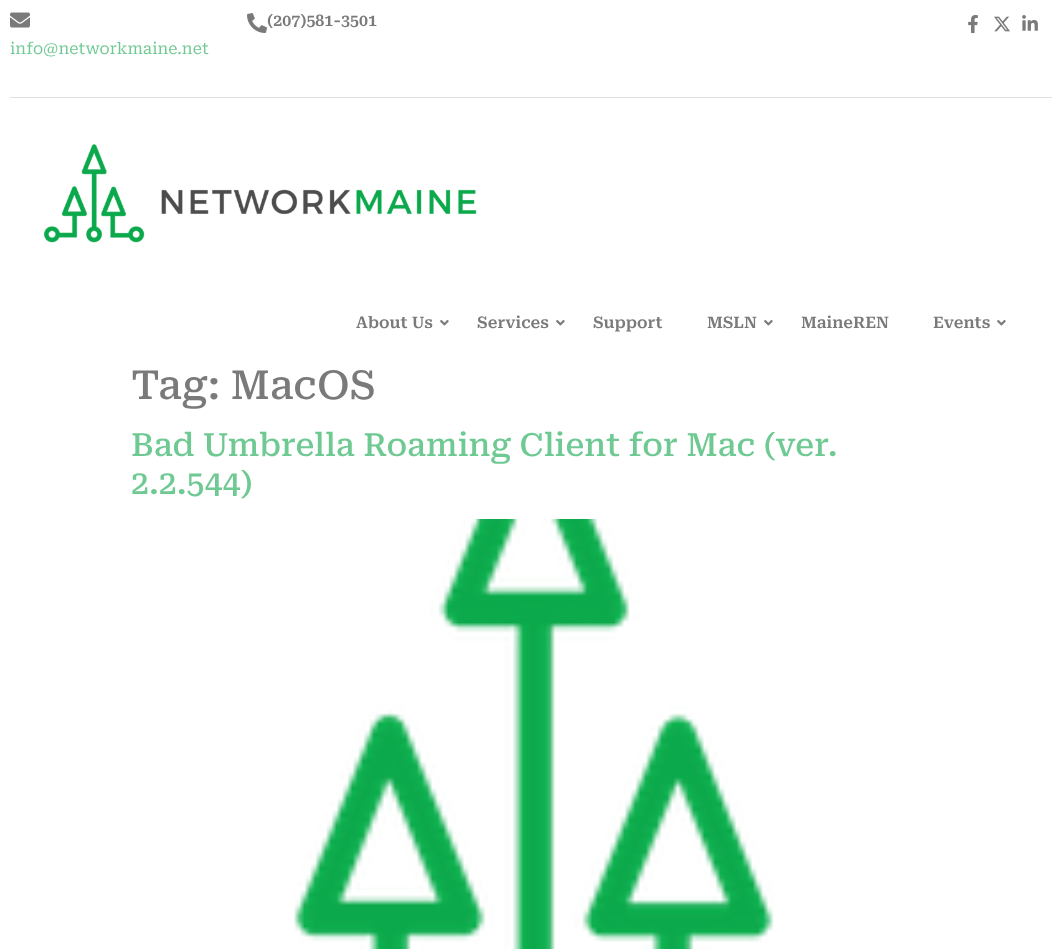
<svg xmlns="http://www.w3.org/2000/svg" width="1062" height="949">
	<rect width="100%" height="100%" fill="#FFFFFF" />
	<image x="247" y="13" width="20" height="20" href="assets/img1.png" />
	<text x="267" y="26" font-family="Roboto Serif" font-size="16" font-weight="600" fill="#7A7A7A">(207)581-3501</text>
	<image x="968" y="15" width="10" height="18" href="assets/img2.png" />
	<image x="994" y="16" width="16" height="16" href="assets/img3.png" />
	<image x="1022" y="15" width="16" height="16" href="assets/img4.png" />
	<image x="10" y="12" width="20" height="16" href="assets/img5.png" />
	<text x="10" y="54" font-family="Roboto Serif" font-size="16" fill="#6FC992">info@networkmaine.net</text>
	<rect x="10" y="97" width="1042" height="1" fill="#E0E0E0" />
	<image x="43" y="144" width="434" height="99" href="assets/img6.png" />
	<text x="356" y="328" font-family="Roboto Serif" font-size="16" font-weight="600" fill="#7A7A7A">About Us</text>
	<image x="440" y="320" width="9" height="6" href="assets/img7.png" />
	<text x="477" y="328" font-family="Roboto Serif" font-size="16" font-weight="600" fill="#7A7A7A">Services</text>
	<image x="556" y="320" width="9" height="6" href="assets/img7.png" />
	<g font-family="Roboto Serif" font-size="16" font-weight="600" fill="#7A7A7A">
		<text x="593" y="328">Support</text>
		<text x="707" y="328">MSLN</text>
	</g>
	<image x="764" y="320" width="9" height="6" href="assets/img7.png" />
	<g font-family="Roboto Serif" font-size="16" font-weight="600" fill="#7A7A7A">
		<text x="801" y="328">MaineREN</text>
		<text x="933" y="328">Events</text>
	</g>
	<image x="997" y="320" width="9" height="6" href="assets/img7.png" />
	<text x="131" y="399" font-family="Roboto Serif" font-size="40" font-weight="500" fill="#7A7A7A">Tag: MacOS</text>
	<g font-family="Roboto Serif" font-size="32" font-weight="500" fill="#6FC992">
		<text x="131" y="456">Bad Umbrella Roaming Client for Mac (ver.</text>
		<text x="131" y="494">2.2.544)</text>
	</g>
	<image x="294" y="519" width="480" height="430" href="assets/img8.png" />
</svg>
